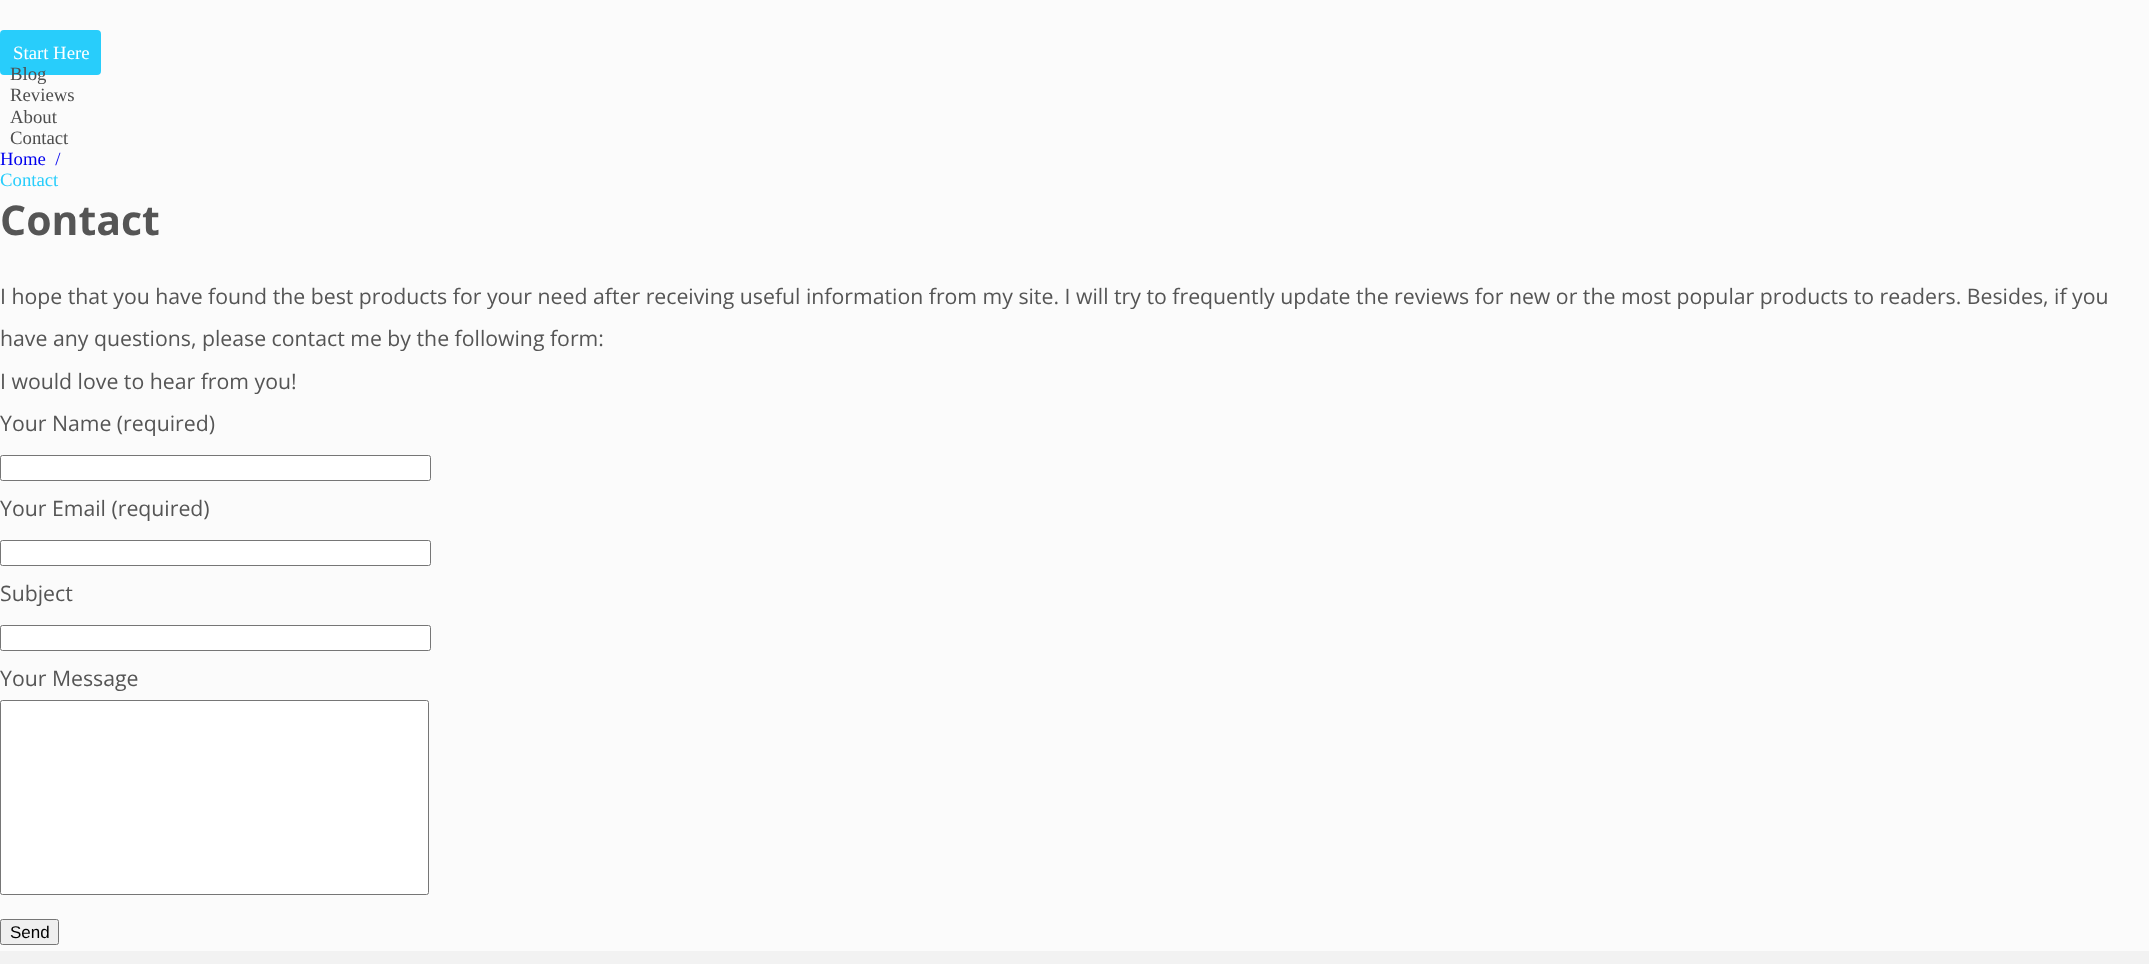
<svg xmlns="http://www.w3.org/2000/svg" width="2149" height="964">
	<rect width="100%" height="100%" fill="#FBFBFB" />
	<rect x="1.5" y="31.5" width="98" height="42" rx="2.5" fill="#28CDFB" stroke="#28CDFB" stroke-width="3" />
	<text x="13" y="59" font-family="Liberation Serif" font-size="18.75" fill="#FFFFFF">Start Here</text>
	<g font-family="Liberation Serif" font-size="18.75" fill="#4E4E4E">
		<text x="10" y="80">Blog</text>
		<text x="10" y="101">Reviews</text>
		<text x="10" y="123">About</text>
		<text x="10" y="144">Contact</text>
	</g>
	<text x="0" y="165" font-family="Liberation Serif" font-size="18.75" fill="#0000EE" xml:space="preserve">Home  /</text>
	<text x="0" y="186" font-family="Liberation Serif" font-size="18.75" fill="#28CDFB">Contact</text>
	<text x="0" y="235" font-family="Open Sans" font-size="41" font-weight="700" fill="#555555">Contact</text>
	<g font-family="Open Sans" font-size="21.25" fill="#555555">
		<text x="0" y="304">I hope that you have found the best products for your need after receiving useful information from my site. I will try to frequently update the reviews for new or the most popular products to readers. Besides, if you</text>
		<text x="0" y="346">have any questions, please contact me by the following form:</text>
		<text x="0" y="389">I would love to hear from you!</text>
		<text x="0" y="431">Your Name (required)</text>
	</g>
	<rect x="0.5" y="455.5" width="430" height="25" rx="2" fill="#FFFFFF" stroke="#767676" />
	<text x="0" y="516" font-family="Open Sans" font-size="21.25" fill="#555555">Your Email (required)</text>
	<rect x="0.5" y="540.5" width="430" height="25" rx="2" fill="#FFFFFF" stroke="#767676" />
	<text x="0" y="601" font-family="Open Sans" font-size="21.25" fill="#555555">Subject</text>
	<rect x="0.5" y="625.5" width="430" height="25" rx="2" fill="#FFFFFF" stroke="#767676" />
	<text x="0" y="686" font-family="Open Sans" font-size="21.25" fill="#555555">Your Message</text>
	<rect x="0.5" y="700.5" width="428" height="194" rx="2" fill="#FFFFFF" stroke="#767676" />
	<rect x="0.5" y="919.5" width="58" height="25" rx="2" fill="#EFEFEF" stroke="#767676" />
	<text x="10" y="938" font-family="Liberation Sans" font-size="17" fill="#000000">Send</text>
	<rect x="0" y="951" width="2149" height="13" fill="#F2F2F2" />
</svg>
